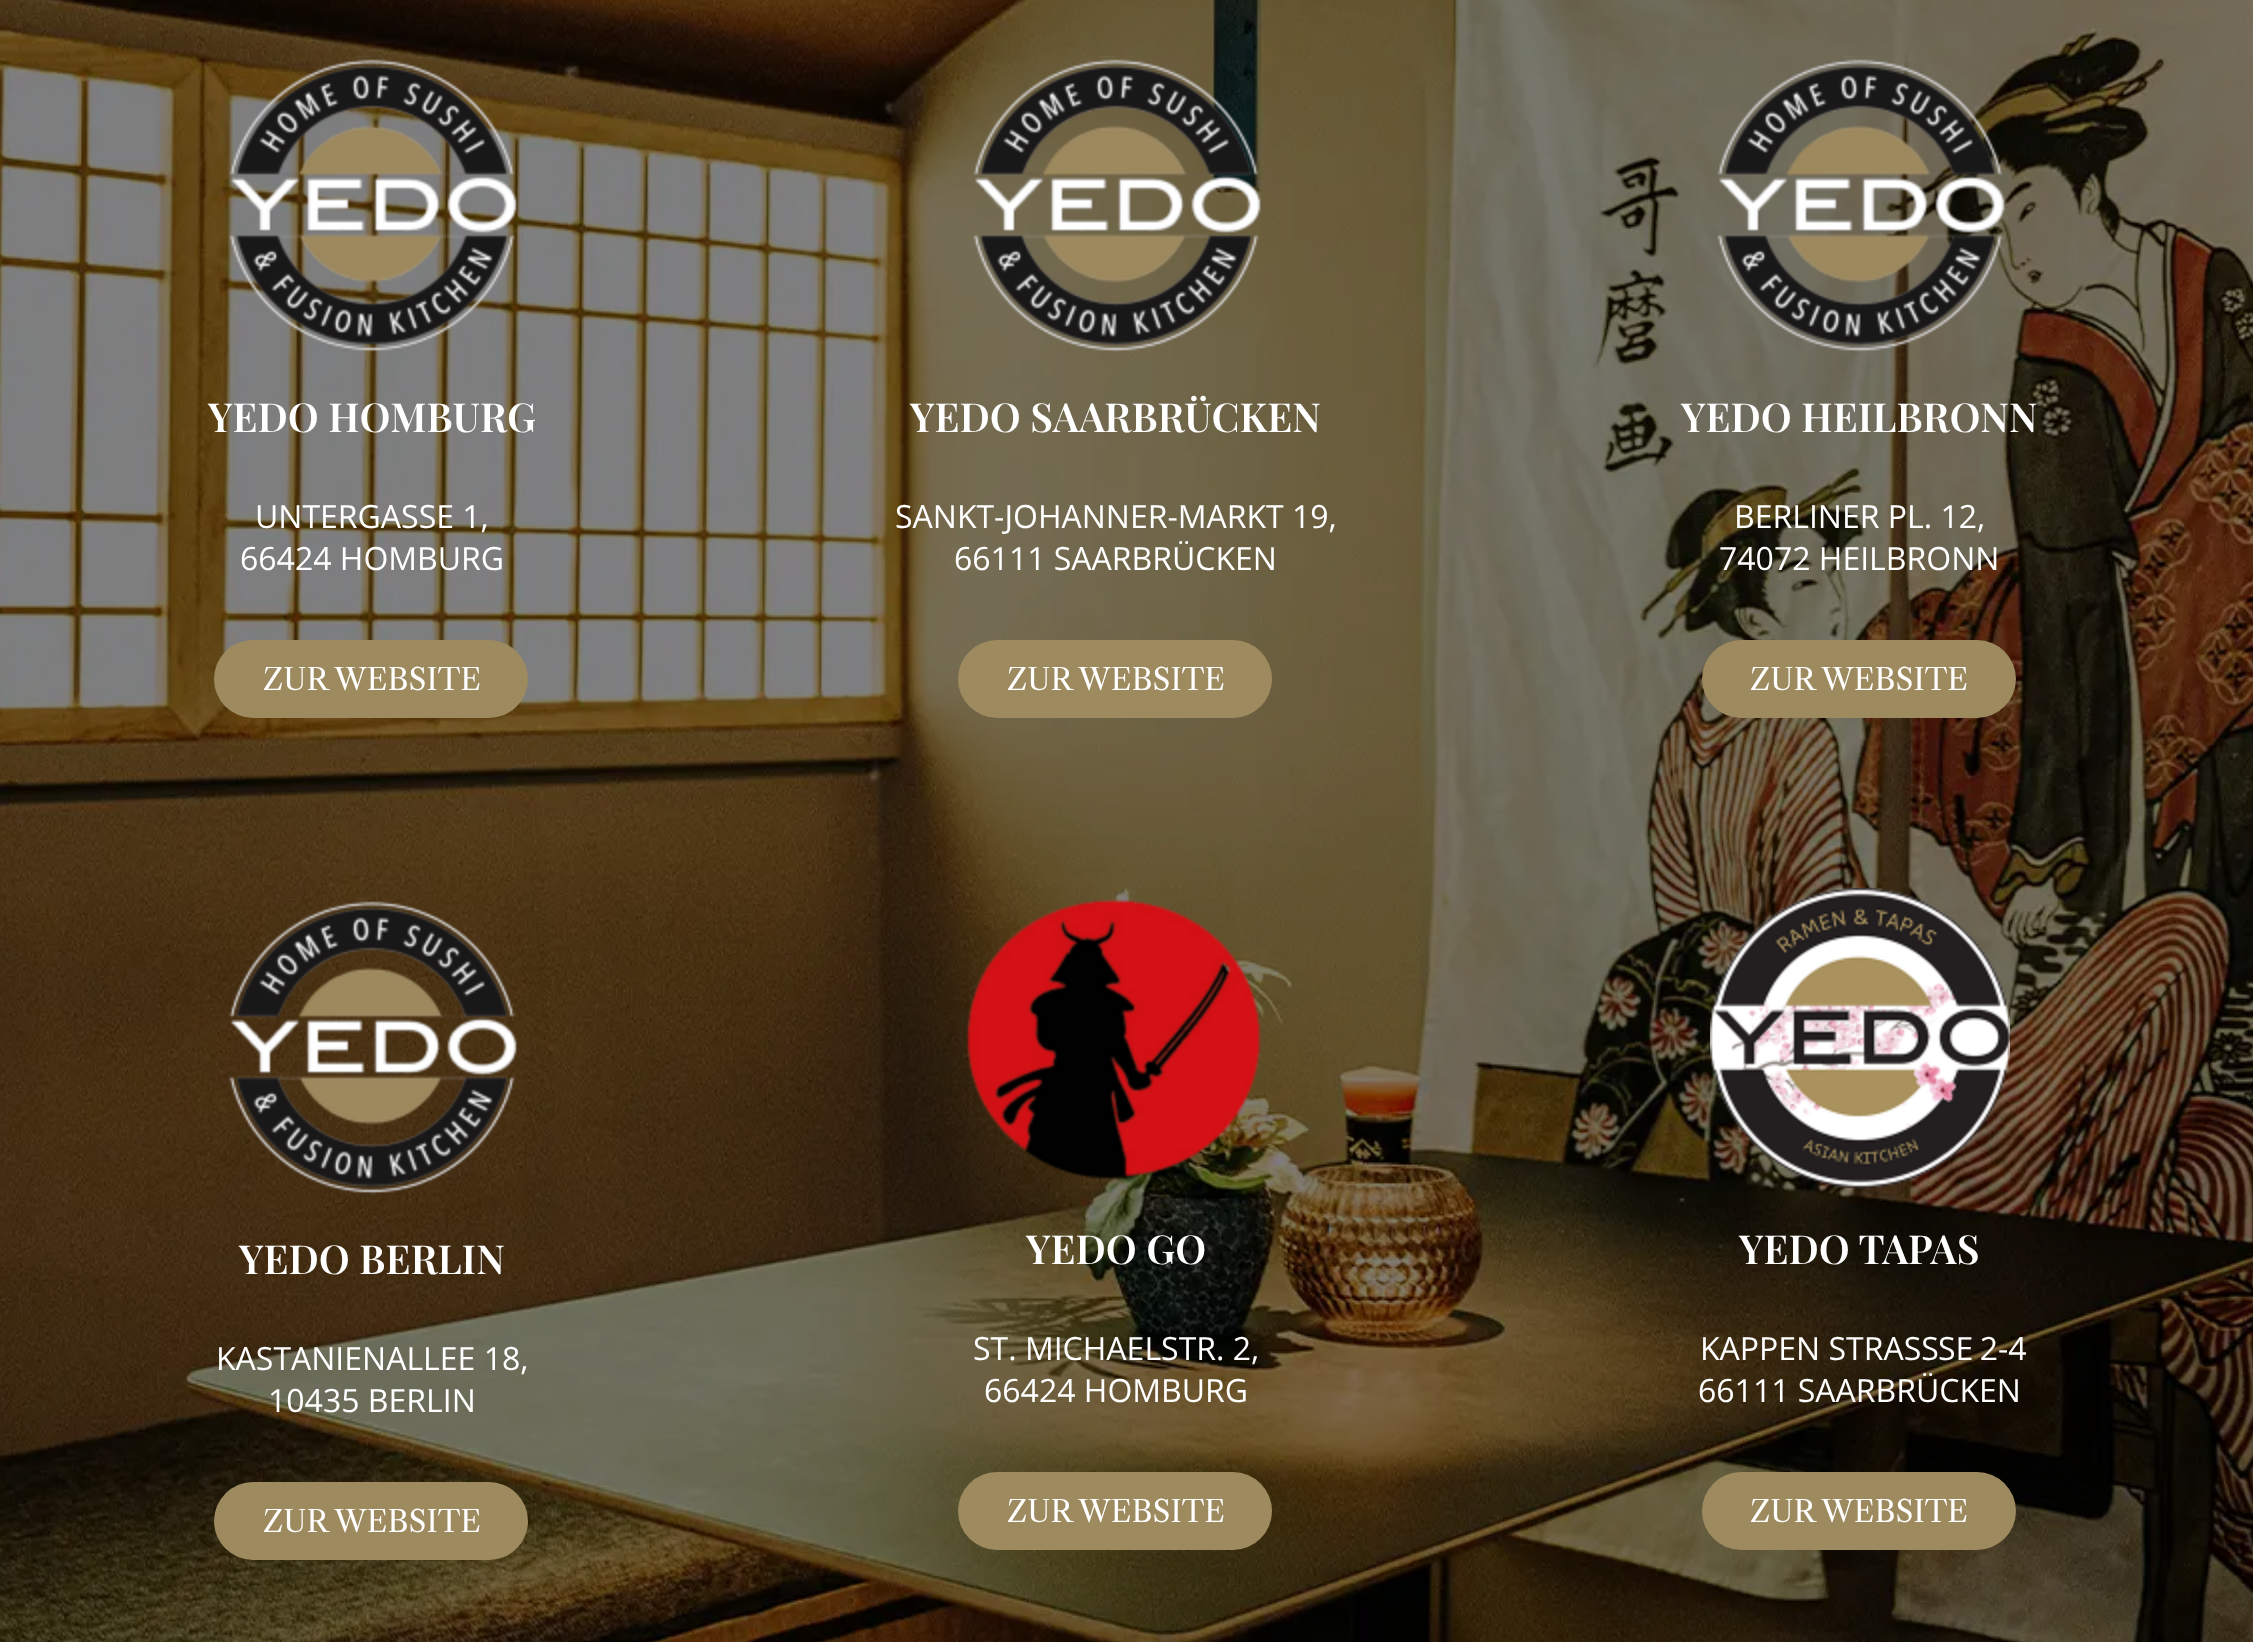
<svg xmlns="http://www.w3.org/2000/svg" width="2253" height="1642">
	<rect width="100%" height="100%" fill="#FFFFFF" />
	<image x="0" y="0" width="2253" height="1642" href="assets/img1.png" />
	<image x="229" y="56" width="288" height="297" href="assets/img2.png" />
	<text x="208" y="432" font-family="Playfair Display" font-size="40" font-weight="600" fill="#FFFFFF">YEDO HOMBURG</text>
	<g font-family="Open Sans" font-size="32" fill="#FFFFFF">
		<text x="255" y="528">UNTERGASSE 1,</text>
		<text x="240" y="570">66424 HOMBURG</text>
	</g>
	<rect x="214" y="640" width="314" height="78" rx="39" fill="#9E8A5F" />
	<text x="263" y="690" font-family="Libre Caslon Text" font-size="30" fill="#FFFFFF">ZUR WEBSITE</text>
	<image x="973" y="56" width="288" height="296" href="assets/img3.png" />
	<text x="910" y="432" font-family="Playfair Display" font-size="40" font-weight="600" fill="#FFFFFF">YEDO SAARBRÜCKEN</text>
	<g font-family="Open Sans" font-size="32" fill="#FFFFFF">
		<text x="895" y="528">SANKT-JOHANNER-MARKT 19,</text>
		<text x="954" y="570">66111 SAARBRÜCKEN</text>
	</g>
	<rect x="958" y="640" width="314" height="78" rx="39" fill="#9E8A5F" />
	<text x="1007" y="690" font-family="Libre Caslon Text" font-size="30" fill="#FFFFFF">ZUR WEBSITE</text>
	<image x="1717" y="56" width="288" height="296" href="assets/img4.png" />
	<text x="1681" y="432" font-family="Playfair Display" font-size="40" font-weight="600" fill="#FFFFFF">YEDO HEILBRONN</text>
	<g font-family="Open Sans" font-size="32" fill="#FFFFFF">
		<text x="1734" y="528">BERLINER PL. 12,</text>
		<text x="1719" y="570">74072 HEILBRONN</text>
	</g>
	<rect x="1702" y="640" width="314" height="78" rx="39" fill="#9E8A5F" />
	<text x="1750" y="690" font-family="Libre Caslon Text" font-size="30" fill="#FFFFFF">ZUR WEBSITE</text>
	<image x="229" y="898" width="288" height="297" href="assets/img5.png" />
	<text x="239" y="1274" font-family="Playfair Display" font-size="40" font-weight="600" fill="#FFFFFF">YEDO BERLIN</text>
	<g font-family="Open Sans" font-size="32" fill="#FFFFFF">
		<text x="216" y="1370">KASTANIENALLEE 18,</text>
		<text x="268" y="1412">10435 BERLIN</text>
	</g>
	<rect x="214" y="1482" width="314" height="78" rx="39" fill="#9E8A5F" />
	<text x="263" y="1532" font-family="Libre Caslon Text" font-size="30" fill="#FFFFFF">ZUR WEBSITE</text>
	<image x="966" y="899" width="295" height="280" href="assets/img6.png" />
	<text x="1026" y="1264" font-family="Playfair Display" font-size="40" font-weight="600" fill="#FFFFFF">YEDO GO</text>
	<g font-family="Open Sans" font-size="32" fill="#FFFFFF">
		<text x="973" y="1360">ST. MICHAELSTR. 2,</text>
		<text x="984" y="1402">66424 HOMBURG</text>
	</g>
	<rect x="958" y="1472" width="314" height="78" rx="39" fill="#9E8A5F" />
	<text x="1007" y="1522" font-family="Libre Caslon Text" font-size="30" fill="#FFFFFF">ZUR WEBSITE</text>
	<image x="1710" y="888" width="300" height="300" href="assets/img7.png" />
	<text x="1739" y="1264" font-family="Playfair Display" font-size="40" font-weight="600" fill="#FFFFFF">YEDO TAPAS</text>
	<g font-family="Open Sans" font-size="32" fill="#FFFFFF">
		<text x="1700" y="1360">KAPPEN STRASS</text>
		<text x="1938" y="1360" word-spacing="-2">SE 2-4</text>
		<text x="1698" y="1402">66111 SAARBRÜCKEN</text>
	</g>
	<rect x="1702" y="1472" width="314" height="78" rx="39" fill="#9E8A5F" />
	<text x="1750" y="1522" font-family="Libre Caslon Text" font-size="30" fill="#FFFFFF">ZUR WEBSITE</text>
</svg>
